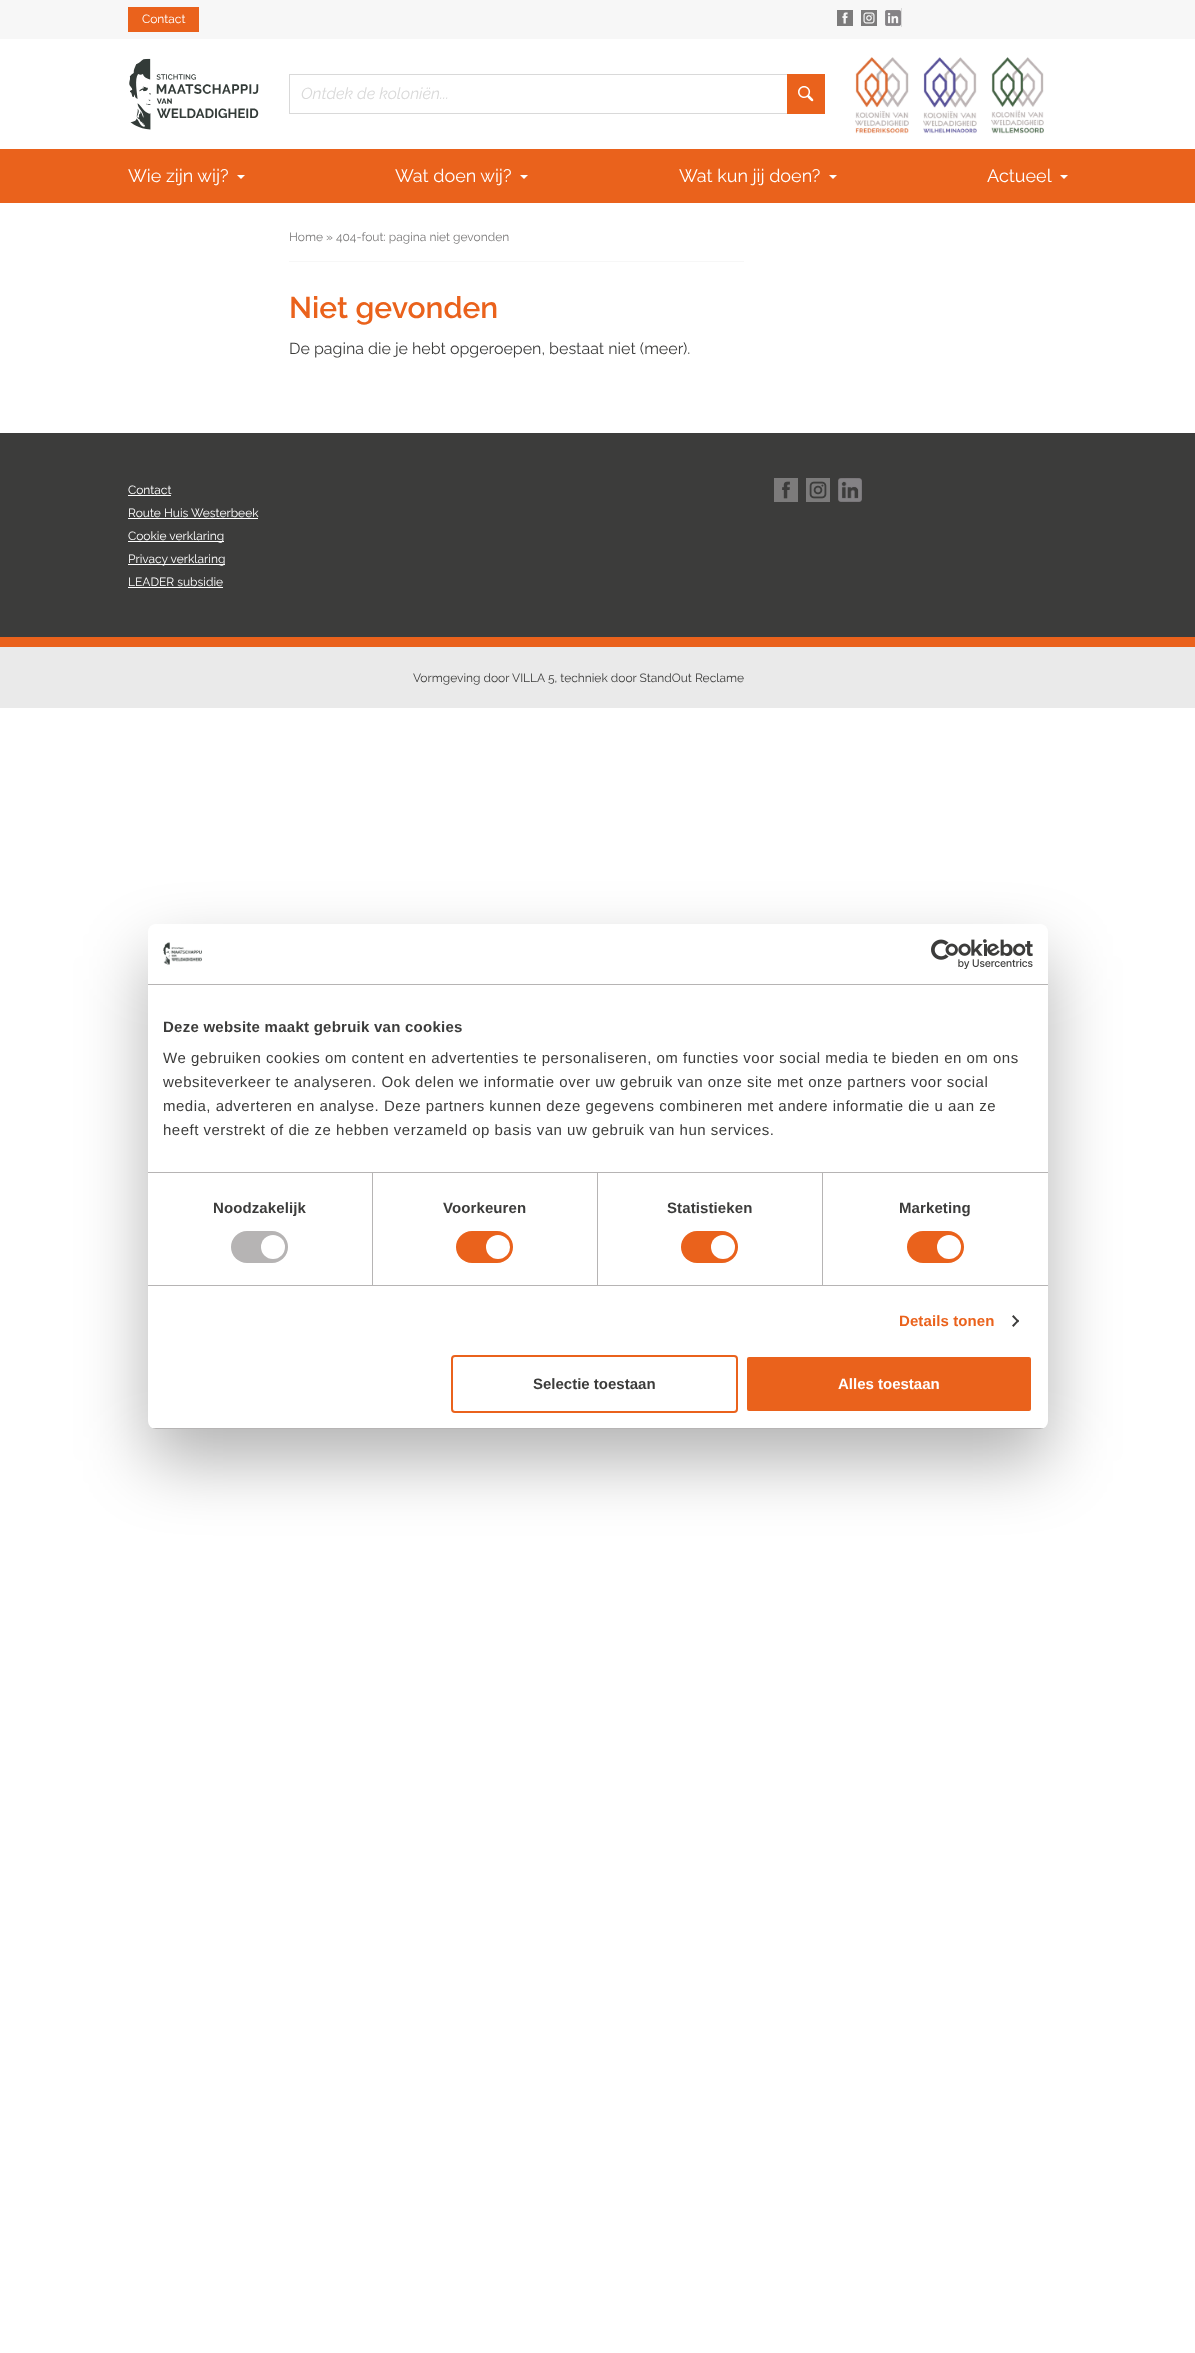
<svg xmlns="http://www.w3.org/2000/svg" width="1195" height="2353">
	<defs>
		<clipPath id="clip1"><rect x="148" y="924" width="900" height="505" rx="8" /></clipPath>
	</defs>
	<rect width="100%" height="100%" fill="#FFFFFF" />
	<rect x="0" y="0" width="1195" height="39" fill="#F7F7F7" />
	<rect x="128" y="7" width="71" height="25" fill="#EA621C" />
	<text x="142" y="23" font-family="Raleway" font-size="12" fill="#FFFFFF">Contact</text>
	<image x="837" y="10" width="16" height="16" href="assets/img1.png" />
	<image x="861" y="10" width="16" height="16" href="assets/img2.png" />
	<image x="885" y="10" width="16" height="16" href="assets/img3.png" />
	<rect x="901" y="8" width="1" height="19" fill="#D9D9D9" />
	<image x="129" y="58" width="130" height="72" href="assets/img4.png" />
	<rect x="289.5" y="74.5" width="535" height="39" fill="none" stroke="#D9D9D9" />
	<text x="301" y="99" font-family="Raleway" font-size="16" font-weight="100" font-style="italic" fill="#D9D9D9">Ontdek de koloniën...</text>
	<rect x="787" y="74" width="38" height="40" fill="#EA621C" />
	<image x="798" y="86" width="16" height="16" href="assets/img5.png" />
	<image x="855" y="57" width="54" height="77" href="assets/img6.png" />
	<image x="923" y="57" width="54" height="77" href="assets/img7.png" />
	<image x="991" y="57" width="53" height="77" href="assets/img8.png" />
	<rect x="0" y="149" width="1195" height="54" fill="#EA621C" />
	<text x="128" y="182" font-family="Raleway" font-size="18" fill="#FFFFFF">Wie zijn wij?</text>
	<path d="M237 175H245L241 179Z" fill="#FFFFFF" />
	<text x="395" y="182" font-family="Raleway" font-size="18" fill="#FFFFFF">Wat doen wij?</text>
	<path d="M520 175H528L524 179Z" fill="#FFFFFF" />
	<text x="679" y="182" font-family="Raleway" font-size="18" fill="#FFFFFF">Wat kun jij doen?</text>
	<path d="M829 175H837L833 179Z" fill="#FFFFFF" />
	<text x="987" y="182" font-family="Raleway" font-size="18" fill="#FFFFFF">Actueel</text>
	<path d="M1060 175H1068L1064 179Z" fill="#FFFFFF" />
	<rect x="289" y="261" width="455" height="1" fill="#F7F7F7" />
	<text x="289" y="241" font-family="Raleway" font-size="12" fill="#7C7B7B">Home » 404-fout: pagina niet gevonden</text>
	<text x="289" y="318" font-family="Raleway" font-size="30" font-weight="600" fill="#EA621C">Niet gevonden</text>
	<text x="289" y="354" font-family="Raleway" font-size="16" fill="#3C3C3B">De pagina die je hebt opgeroepen, bestaat niet (meer).</text>
	<rect x="0" y="433" width="1195" height="204" fill="#3C3C3B" />
	<rect x="0" y="637" width="1195" height="10" fill="#EA621C" />
	<text x="128" y="494" font-family="Raleway" font-size="12" fill="#FFFFFF">Contact</text>
	<rect x="128" y="495" width="43" height="1" fill="#FFFFFF" />
	<text x="128" y="517" font-family="Raleway" font-size="12" fill="#FFFFFF">Route Huis Westerbeek</text>
	<rect x="128" y="518" width="130" height="1" fill="#FFFFFF" />
	<rect x="128" y="541" width="96" height="1" fill="#FFFFFF" />
	<text x="128" y="540" font-family="Raleway" font-size="12" fill="#FFFFFF">Cookie verklaring</text>
	<rect x="128" y="564" width="97" height="1" fill="#FFFFFF" />
	<g font-family="Raleway" font-size="12" fill="#FFFFFF">
		<text x="128" y="563">Privacy verklaring</text>
		<text x="128" y="586">LEADER subsidie</text>
	</g>
	<rect x="128" y="587" width="95" height="1" fill="#FFFFFF" />
	<image x="774" y="478" width="24" height="24" href="assets/img9.png" />
	<image x="806" y="478" width="24" height="24" href="assets/img10.png" />
	<image x="838" y="478" width="24" height="24" href="assets/img11.png" />
	<rect x="0" y="647" width="1195" height="61" fill="#EAEAEA" />
	<g font-family="Raleway" font-size="12" fill="#3C3C3B">
		<text x="413" y="682">Vormgeving door</text>
		<text x="512" y="682">VILLA 5, techniek door StandOut Reclame</text>
	</g>
	<rect x="148" y="956" width="900" height="505" rx="8" fill="#000000" fill-opacity="0.3" filter="blur(34px)" />
	<rect x="148" y="924" width="900" height="505" rx="8" fill="#FFFFFF" />
	<rect x="148" y="984" width="900" height="1" fill="#B6B4B4" />
	<image x="163" y="942" width="39" height="23" href="assets/img12.png" />
	<image x="931" y="939" width="102" height="30" href="assets/img13.png" />
	<rect x="148" y="1172" width="900" height="1" fill="#B6B4B4" />
	<text x="163" y="1032" font-family="Liberation Sans" font-size="15" font-weight="700" letter-spacing="0.25" fill="#3C3C3B">Deze website maakt gebruik van cookies</text>
	<g font-family="Liberation Sans" font-size="15" letter-spacing="0.5" fill="#3C3C3B">
		<text x="163" y="1063">We gebruiken cookies om content en advertenties te personaliseren, om functies voor social media te bieden en om ons</text>
		<text x="163" y="1087">websiteverkeer te analyseren. Ook delen we informatie over uw gebruik van onze site met onze partners voor social</text>
		<text x="163" y="1111">media, adverteren en analyse. Deze partners kunnen deze gegevens combineren met andere informatie die u aan ze</text>
		<text x="163" y="1135">heeft verstrekt of die ze hebben verzameld op basis van uw gebruik van hun services.</text>
	</g>
	<rect x="148" y="1285" width="900" height="1" fill="#B6B4B4" />
	<rect x="372" y="1173" width="1" height="112" fill="#B6B4B4" />
	<text x="213" y="1213" font-family="Liberation Sans" font-size="15" font-weight="700" letter-spacing="0.1" fill="#3C3C3B">Noodzakelijk</text>
	<rect x="231" y="1231" width="57" height="32" rx="16" fill="#B6B4B4" />
	<circle cx="273" cy="1247" r="12" fill="#FFFFFF" />
	<rect x="597" y="1173" width="1" height="112" fill="#B6B4B4" />
	<text x="443" y="1213" font-family="Liberation Sans" font-size="15" font-weight="700" letter-spacing="0.1" fill="#3C3C3B">Voorkeuren</text>
	<rect x="456" y="1231" width="57" height="32" rx="16" fill="#EA621C" />
	<circle cx="498" cy="1247" r="12" fill="#FFFFFF" />
	<rect x="822" y="1173" width="1" height="112" fill="#B6B4B4" />
	<text x="667" y="1213" font-family="Liberation Sans" font-size="15" font-weight="700" letter-spacing="0.1" fill="#3C3C3B">Statistieken</text>
	<rect x="681" y="1231" width="57" height="32" rx="16" fill="#EA621C" />
	<circle cx="723" cy="1247" r="12" fill="#FFFFFF" />
	<text x="899" y="1213" font-family="Liberation Sans" font-size="15" font-weight="700" letter-spacing="0.1" fill="#3C3C3B">Marketing</text>
	<rect x="907" y="1231" width="57" height="32" rx="16" fill="#EA621C" />
	<circle cx="949" cy="1247" r="12" fill="#FFFFFF" />
	<text x="899" y="1326" font-family="Liberation Sans" font-size="15" font-weight="700" letter-spacing="0.1" fill="#EA621C">Details tonen</text>
	<path d="M1013.5 1315L1019 1321L1018 1322.5L1012 1316.5Z" fill="#3C3C3B" />
	<path d="M1018 1319.5L1019 1321L1013.5 1327L1012 1325.5Z" fill="#3C3C3B" />
	<g clip-path="url(#clip1)">
		<rect x="148" y="1428" width="900" height="1" fill="#B6B4B4" />
	</g>
	<rect x="452" y="1356" width="285" height="56" rx="3" fill="none" stroke="#EA621C" stroke-width="2" />
	<text x="533" y="1389" font-family="Liberation Sans" font-size="15" font-weight="700" fill="#3C3C3B">Selectie toestaan</text>
	<rect x="746" y="1356" width="286" height="56" rx="3" fill="#EA621C" stroke="#FFFFFF" stroke-width="2" />
	<text x="838" y="1389" font-family="Liberation Sans" font-size="15" font-weight="700" fill="#FFFFFF">Alles toestaan</text>
</svg>
